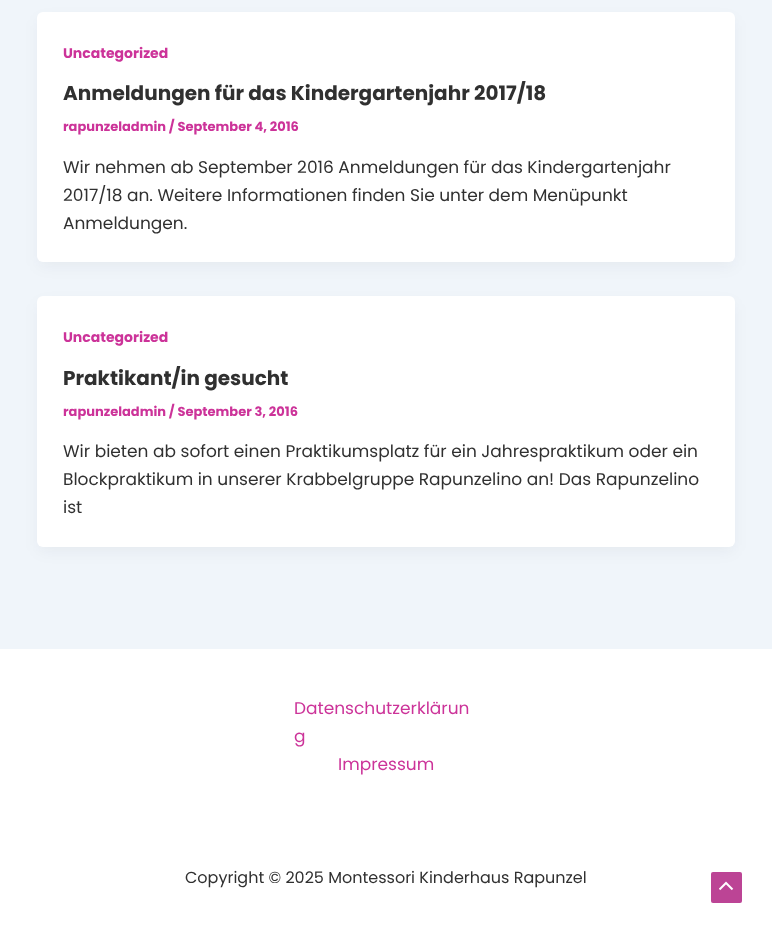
<svg xmlns="http://www.w3.org/2000/svg" width="772" height="933">
	<rect width="100%" height="100%" fill="#F0F5FA" />
	<rect x="39" y="20" width="694" height="246" rx="4" fill="#101828" fill-opacity="0.05" filter="blur(7.5px)" />
	<rect x="37" y="12" width="698" height="250" rx="6" fill="#FFFFFF" />
	<text x="63" y="58" font-family="Poppins" font-size="14" font-weight="700" fill="#CC3399">Uncategorized</text>
	<text x="63" y="100" font-family="Poppins" font-size="20" font-weight="700" fill="#303030">Anmeldungen für das Kindergartenjahr 2017/18</text>
	<text x="63" y="131" font-family="Poppins" font-size="13" font-weight="700" fill="#CC3399">rapunzeladmin / September 4, 2016</text>
	<g font-family="Poppins" font-size="17" fill="#303030">
		<text x="63" y="173">Wir nehmen ab September 2016 Anmeldungen für das Kindergartenjahr</text>
		<text x="63" y="201">2017/18 an. Weitere Informationen finden Sie unter dem Menüpunkt</text>
		<text x="63" y="229">Anmeldungen.</text>
	</g>
	<rect x="39" y="304" width="694" height="247" rx="4" fill="#101828" fill-opacity="0.05" filter="blur(7.5px)" />
	<rect x="37" y="296" width="698" height="251" rx="6" fill="#FFFFFF" />
	<text x="63" y="342" font-family="Poppins" font-size="14" font-weight="700" fill="#CC3399">Uncategorized</text>
	<text x="63" y="385" font-family="Poppins" font-size="20" font-weight="700" fill="#303030">Praktikant/in gesucht</text>
	<text x="63" y="416" font-family="Poppins" font-size="13" font-weight="700" fill="#CC3399">rapunzeladmin / September 3, 2016</text>
	<g font-family="Poppins" font-size="17" fill="#303030">
		<text x="63" y="457">Wir bieten ab sofort einen Praktikumsplatz für ein Jahrespraktikum oder ein</text>
		<text x="63" y="485">Blockpraktikum in unserer Krabbelgruppe Rapunzelino an! Das Rapunzelino</text>
		<text x="63" y="513">ist</text>
	</g>
	<rect x="0" y="649" width="772" height="284" fill="#FFFFFF" />
	<g font-family="Poppins" font-size="17" fill="#CC3399">
		<text x="294" y="714">Datenschutzerklärun</text>
		<text x="294" y="742">g</text>
		<text x="338" y="770">Impressum</text>
	</g>
	<text x="185" y="883" font-family="Poppins" font-size="16" fill="#303030">Copyright © 2025 Montessori Kinderhaus Rapunzel</text>
	<rect x="711" y="872" width="31" height="31" rx="2" fill="#BC4495" />
	<image x="719" y="881" width="15" height="10" href="assets/img1.png" />
</svg>
